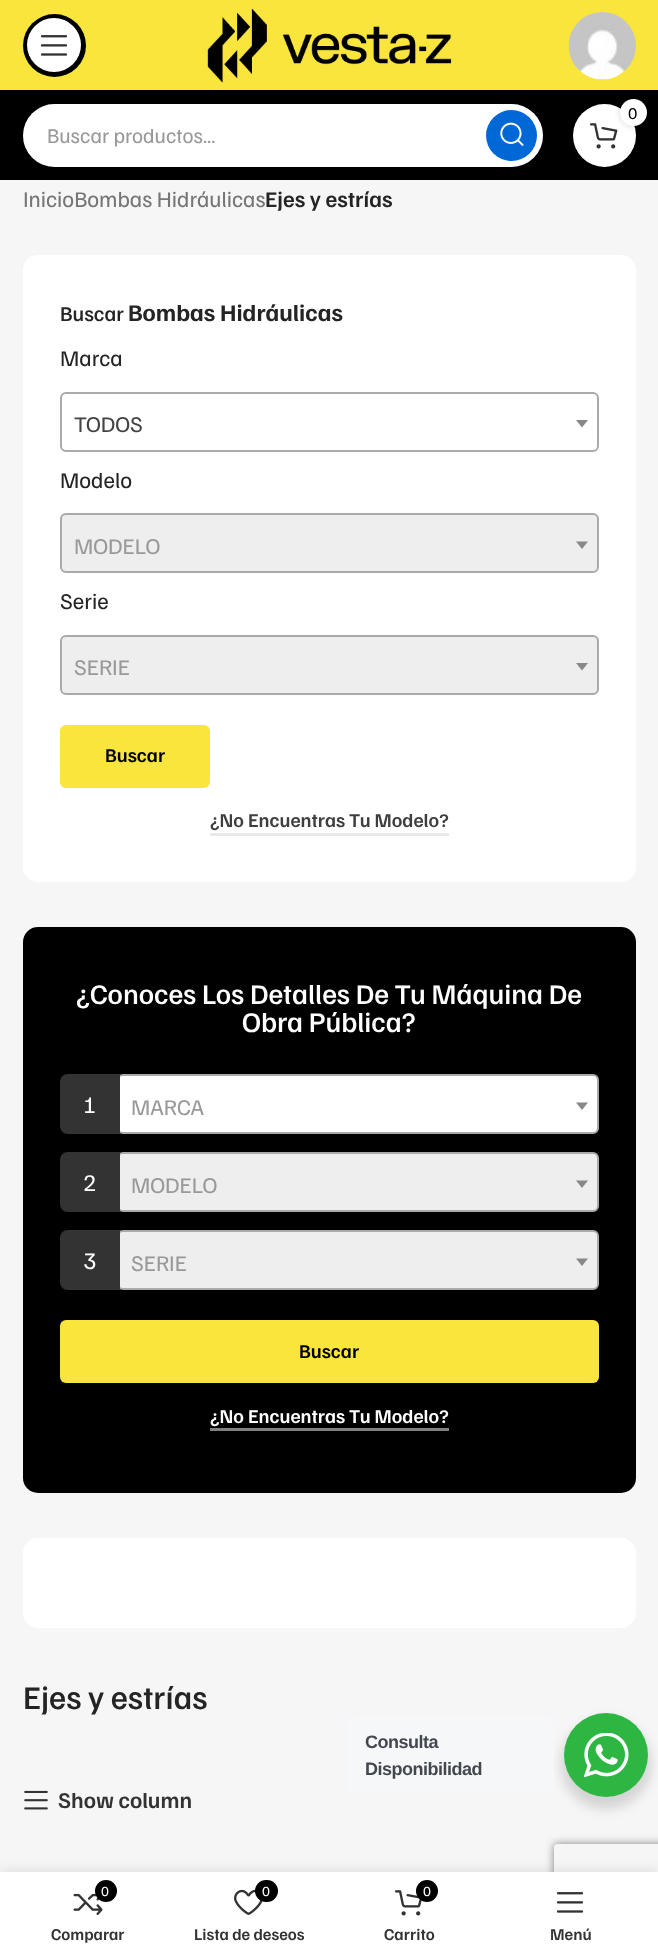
<svg xmlns="http://www.w3.org/2000/svg" width="658" height="1954">
	<defs>
		<clipPath id="clip1"><path d="M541 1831H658V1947H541ZM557 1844H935C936.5 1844 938 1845.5 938 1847V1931C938 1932.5 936.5 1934 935 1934H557C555.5 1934 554 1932.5 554 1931V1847C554 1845.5 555.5 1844 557 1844Z" clip-rule="evenodd" /></clipPath>
	</defs>
	<rect width="100%" height="100%" fill="#F6F6F6" />
	<rect x="0" y="0" width="658" height="90" fill="#FAE53D" />
	<circle cx="54.5" cy="45.5" r="31.5" fill="#000000" />
	<circle cx="54" cy="45" r="27" fill="#FFFFFF" />
	<image x="40" y="35" width="28" height="21" href="assets/img1.png" />
	<image x="207" y="8" width="245" height="75" href="assets/img2.png" />
	<image x="568" y="12" width="68" height="68" href="assets/img3.png" />
	<rect x="0" y="90" width="658" height="90" fill="#000000" />
	<circle cx="604.5" cy="135.5" r="31.5" fill="#FFFFFF" />
	<image x="590" y="123" width="28" height="26" href="assets/img4.png" />
	<rect x="620" y="99" width="27" height="27" rx="13.5" fill="#000000" fill-opacity="0.17" filter="blur(3px)" />
	<circle cx="633.5" cy="112.5" r="13.5" fill="#FFFFFF" />
	<text x="628" y="119" font-family="Familjen Grotesk" font-size="16.5" fill="#000000">0</text>
	<rect x="23" y="104" width="520" height="63" rx="31.5" fill="#FFFFFF" />
	<rect x="24" y="105" width="518" height="61" rx="30.5" fill="none" stroke="#FFFFFF" stroke-opacity="0.2" stroke-width="2" />
	<text x="47" y="143" font-family="Familjen Grotesk" font-size="21" fill="#999999">Buscar productos...</text>
	<circle cx="511.5" cy="135.5" r="25.5" fill="#0067D7" />
	<image x="500" y="122" width="24" height="24" href="assets/img5.png" />
	<text x="23" y="207" font-family="Familjen Grotesk" font-size="22.5" fill="#767676">InicioBombas Hidráulicas</text>
	<text x="265" y="207" font-family="Familjen Grotesk" font-size="22.5" font-weight="600" fill="#242424">Ejes y estrías</text>
	<rect x="23" y="255" width="613" height="627" rx="15" fill="#FFFFFF" />
	<text x="60" y="321" font-family="Familjen Grotesk" font-size="21" font-weight="500" fill="#242424">Buscar</text>
	<text x="128" y="321" font-family="Familjen Grotesk" font-size="24" font-weight="700" fill="#242424">Bombas Hidráulicas</text>
	<text x="60" y="366" font-family="Familjen Grotesk" font-size="22.5" fill="#242424">Marca</text>
	<rect x="61" y="393" width="537" height="58" rx="5" fill="none" stroke="#AAAAAA" stroke-width="2" />
	<text x="74" y="432" font-family="Familjen Grotesk" font-size="22.5" fill="#444444">TODOS</text>
	<path d="M576 420H588L582 427.5Z" fill="#888888" />
	<text x="60" y="488" font-family="Familjen Grotesk" font-size="22.5" fill="#242424">Modelo</text>
	<rect x="61" y="514" width="537" height="58" rx="5" fill="#EEEEEE" stroke="#AAAAAA" stroke-width="2" />
	<text x="74" y="554" font-family="Familjen Grotesk" font-size="22.5" fill="#999999">MODELO</text>
	<path d="M576 541.5H588L582 549Z" fill="#888888" />
	<text x="60" y="609" font-family="Familjen Grotesk" font-size="22.5" fill="#242424">Serie</text>
	<rect x="61" y="636" width="537" height="58" rx="5" fill="#EEEEEE" stroke="#AAAAAA" stroke-width="2" />
	<text x="74" y="675" font-family="Familjen Grotesk" font-size="22.5" fill="#999999">SERIE</text>
	<path d="M576 663H588L582 670.5Z" fill="#888888" />
	<rect x="60" y="725" width="150" height="63" rx="6" fill="#FAE53D" />
	<text x="105" y="762" font-family="Familjen Grotesk" font-size="19.5" font-weight="600" fill="#000000">Buscar</text>
	<rect x="210" y="833" width="239" height="3" fill="#E9E9E9" />
	<text x="210" y="827" font-family="Familjen Grotesk" font-size="19.5" font-weight="600" fill="#3E3E3E">¿No Encuentras Tu Modelo?</text>
	<rect x="23" y="927" width="613" height="566" rx="15" fill="#000000" />
	<g font-family="Familjen Grotesk" font-size="28.5" font-weight="500" fill="#FFFFFF">
		<text x="76" y="1004">¿Conoces Los Detalles De Tu Máquina De</text>
		<text x="242" y="1032">Obra Pública?</text>
	</g>
	<rect x="118" y="1075" width="480" height="58" rx="5" fill="#FFFFFF" stroke="#AAAAAA" stroke-width="2" />
	<path d="M68 1074H120V1134H68C63.5 1134 60 1130.5 60 1126V1082C60 1077.5 63.5 1074 68 1074Z" fill="#333333" />
	<text x="83" y="1113" font-family="Familjen Grotesk" font-size="24" fill="#FFFFFF">1</text>
	<text x="131" y="1115" font-family="Familjen Grotesk" font-size="22.5" fill="#999999">MARCA</text>
	<path d="M576 1102.5H588L582 1110Z" fill="#888888" />
	<rect x="118" y="1153" width="480" height="58" rx="5" fill="#EEEEEE" stroke="#AAAAAA" stroke-width="2" />
	<path d="M68 1152H120V1212H68C63.5 1212 60 1208.5 60 1204V1160C60 1155.5 63.5 1152 68 1152Z" fill="#333333" />
	<text x="83" y="1191" font-family="Familjen Grotesk" font-size="24" fill="#FFFFFF">2</text>
	<text x="131" y="1193" font-family="Familjen Grotesk" font-size="22.5" fill="#999999">MODELO</text>
	<path d="M576 1180.5H588L582 1188Z" fill="#888888" />
	<rect x="118" y="1231" width="480" height="58" rx="5" fill="#EEEEEE" stroke="#AAAAAA" stroke-width="2" />
	<path d="M68 1230H120V1290H68C63.5 1290 60 1286.5 60 1282V1238C60 1233.5 63.5 1230 68 1230Z" fill="#333333" />
	<text x="83" y="1269" font-family="Familjen Grotesk" font-size="24" fill="#FFFFFF">3</text>
	<text x="131" y="1271" font-family="Familjen Grotesk" font-size="22.5" fill="#999999">SERIE</text>
	<path d="M576 1258.5H588L582 1266Z" fill="#888888" />
	<rect x="60" y="1320" width="539" height="63" rx="6" fill="#FAE53D" />
	<text x="299" y="1358" font-family="Familjen Grotesk" font-size="19.5" font-weight="600" fill="#000000">Buscar</text>
	<rect x="210" y="1428" width="239" height="3" fill="#808080" />
	<text x="210" y="1423" font-family="Familjen Grotesk" font-size="19.5" font-weight="600" fill="#FFFFFF">¿No Encuentras Tu Modelo?</text>
	<rect x="23" y="1538" width="613" height="90" rx="15" fill="#FFFFFF" />
	<text x="23" y="1709" font-family="Familjen Grotesk" font-size="33" font-weight="500" fill="#242424">Ejes y estrías</text>
	<image x="24" y="1790" width="24" height="20" href="assets/img6.png" />
	<text x="58" y="1808" font-family="Familjen Grotesk" font-size="22.5" font-weight="600" fill="#333333">Show column</text>
	<rect x="561" y="1719" width="90" height="90" rx="45" fill="#000000" fill-opacity="0.14" filter="blur(6px)" />
	<rect x="347" y="1716" width="207" height="78" rx="6" fill="#F5F7F9" />
	<g font-family="Liberation Sans" font-size="18" font-weight="700" letter-spacing="-0.5" fill="#43474E">
		<text x="365" y="1748">Consulta</text>
		<text x="365" y="1775">Disponibilidad</text>
	</g>
	<circle cx="606" cy="1755" r="42" fill="#2DB742" />
	<image x="584" y="1733" width="45" height="45" href="assets/img7.png" />
	<rect x="0" y="1872" width="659" height="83" fill="#000000" fill-opacity="0.12" filter="blur(7px)" />
	<g clip-path="url(#clip1)">
		<rect x="554" y="1844" width="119" height="90" rx="3" fill="#808080" filter="blur(4px)" />
	</g>
	<rect x="0" y="1872" width="658" height="82" fill="#FFFFFF" />
	<image x="73" y="1893" width="30" height="22" href="assets/img8.png" />
	<circle cx="106" cy="1891" r="11" fill="#000000" />
	<text x="101" y="1896" font-family="Familjen Grotesk" font-size="14" fill="#FFFFFF">0</text>
	<text x="51" y="1940" font-family="Familjen Grotesk" font-size="16.5" font-weight="600" fill="#333333">Comparar</text>
	<image x="234" y="1889" width="29" height="26" href="assets/img9.png" />
	<rect x="255" y="1880" width="23" height="22" rx="11" fill="#000000" />
	<text x="262" y="1896" font-family="Familjen Grotesk" font-size="14" fill="#FFFFFF">0</text>
	<text x="194" y="1940" font-family="Familjen Grotesk" font-size="16.5" font-weight="600" fill="#333333">Lista de deseos</text>
	<image x="395" y="1890" width="27" height="26" href="assets/img10.png" />
	<circle cx="427" cy="1891" r="11" fill="#000000" />
	<text x="423" y="1896" font-family="Familjen Grotesk" font-size="14" fill="#FFFFFF">0</text>
	<text x="384" y="1940" font-family="Familjen Grotesk" font-size="16.5" font-weight="600" fill="#333333">Carrito</text>
	<image x="556" y="1892" width="28" height="21" href="assets/img1.png" />
	<text x="550" y="1940" font-family="Familjen Grotesk" font-size="16.5" font-weight="600" fill="#333333">Menú</text>
</svg>
